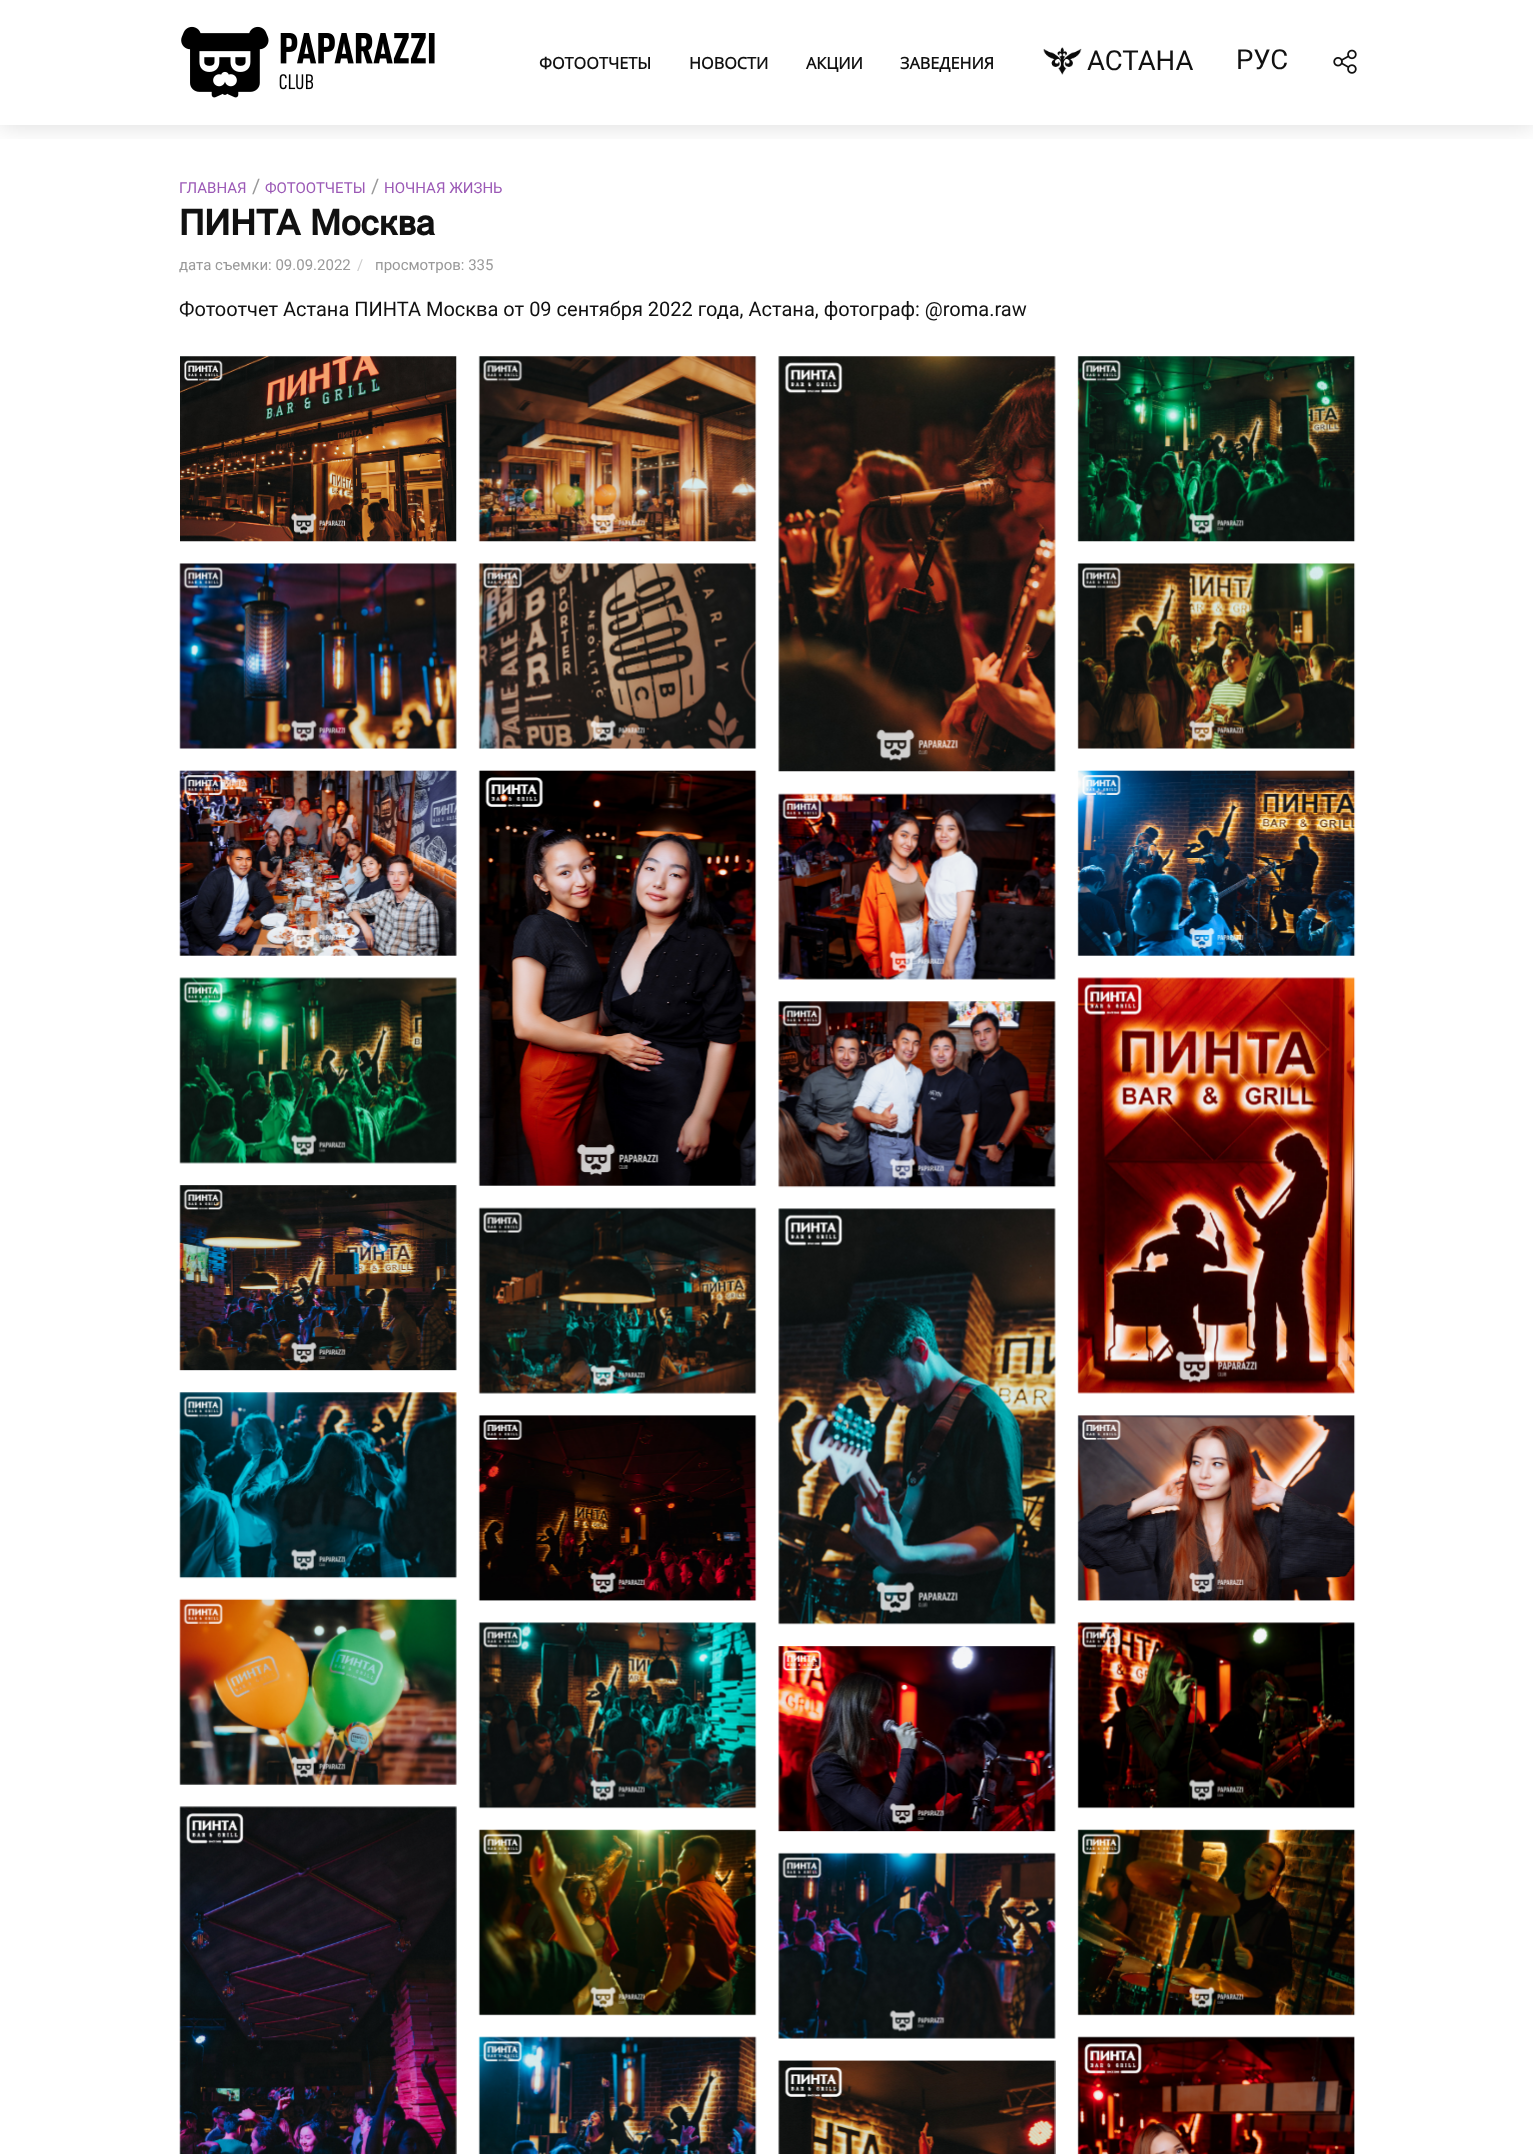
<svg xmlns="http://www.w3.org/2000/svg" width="1533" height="2154">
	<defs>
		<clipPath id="clip1"><rect x="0" y="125" width="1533" height="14" /></clipPath>
	</defs>
	<rect width="100%" height="100%" fill="#FFFFFF" />
	<g clip-path="url(#clip1)">
		<rect x="0" y="0" width="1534" height="125" fill="#000000" fill-opacity="0.15" filter="blur(12.5px)" />
	</g>
	<image x="181" y="26" width="254" height="72" href="assets/img1.png" />
	<g font-family="Open Sans" font-size="16.25" font-weight="700" fill="#111111">
		<text x="539" y="69">ФОТООТЧЕТЫ</text>
		<text x="689" y="69">НОВОСТИ</text>
		<text x="806" y="69">АКЦИИ</text>
		<text x="900" y="69">ЗАВЕДЕНИЯ</text>
	</g>
	<image x="1043" y="47" width="39" height="28" href="assets/img2.png" />
	<g font-family="Roboto" font-size="27.5" fill="#111111">
		<text x="1087" y="70">АСТАНА</text>
		<text x="1236" y="69">РУС</text>
	</g>
	<image x="1333" y="49" width="24" height="25" href="assets/img3.png" />
	<text x="179" y="193" font-family="Roboto" font-size="15" fill="#9B59B6">ГЛАВНАЯ</text>
	<text x="252" y="193" font-family="Roboto" font-size="20" fill="#999999">/</text>
	<text x="265" y="193" font-family="Roboto" font-size="15" fill="#9B59B6">ФОТООТЧЕТЫ</text>
	<text x="371" y="193" font-family="Roboto" font-size="20" fill="#999999">/</text>
	<text x="384" y="193" font-family="Roboto" font-size="15" fill="#9B59B6">НОЧНАЯ ЖИЗНЬ</text>
	<text x="179" y="235" font-family="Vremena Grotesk" font-size="35" font-weight="700" fill="#111111">ПИНТА Москва</text>
	<text x="179" y="270" font-family="Roboto" font-size="15" fill="#999999">дата съемки: 09.09.2022</text>
	<text x="357" y="270" font-family="Roboto" font-size="15" fill="#CCCCCC">/</text>
	<text x="375" y="270" font-family="Roboto" font-size="15" fill="#999999">просмотров: 335</text>
	<text x="179" y="316" font-family="Roboto" font-size="20" fill="#111111">Фотоотчет Астана ПИНТА Москва от 09 сентября 2022 года, Астана, фотограф: @roma.raw</text>
	<image x="180" y="356" width="277" height="186" href="assets/img4.png" />
	<image x="478" y="356" width="279" height="186" href="assets/img5.png" />
	<image x="778" y="356" width="278" height="416" href="assets/img6.png" />
	<image x="1077" y="356" width="279" height="186" href="assets/img7.png" />
	<image x="179" y="563" width="278" height="186" href="assets/img8.png" />
	<image x="478" y="563" width="279" height="186" href="assets/img9.png" />
	<image x="1077" y="563" width="279" height="186" href="assets/img10.png" />
	<image x="179" y="770" width="278" height="186" href="assets/img11.png" />
	<image x="478" y="770" width="279" height="416" href="assets/img12.png" />
	<image x="778" y="793" width="278" height="187" href="assets/img13.png" />
	<image x="1077" y="770" width="279" height="186" href="assets/img14.png" />
	<image x="179" y="977" width="278" height="187" href="assets/img15.png" />
	<image x="778" y="1001" width="278" height="187" href="assets/img16.png" />
	<image x="1077" y="977" width="279" height="417" href="assets/img17.png" />
	<image x="179" y="1185" width="278" height="186" href="assets/img18.png" />
	<image x="478" y="1207" width="279" height="187" href="assets/img19.png" />
	<image x="778" y="1208" width="278" height="417" href="assets/img20.png" />
	<image x="179" y="1392" width="278" height="187" href="assets/img21.png" />
	<image x="478" y="1415" width="279" height="186" href="assets/img22.png" />
	<image x="1077" y="1415" width="279" height="186" href="assets/img23.png" />
	<image x="179" y="1598" width="278" height="187" href="assets/img24.png" />
	<image x="478" y="1622" width="279" height="187" href="assets/img25.png" />
	<image x="778" y="1646" width="278" height="186" href="assets/img26.png" />
	<image x="1077" y="1622" width="279" height="187" href="assets/img27.png" />
	<image x="179" y="1806" width="278" height="348" href="assets/img28.png" />
	<image x="478" y="1829" width="279" height="187" href="assets/img29.png" />
	<image x="778" y="1852" width="278" height="187" href="assets/img30.png" />
	<image x="1077" y="1829" width="279" height="187" href="assets/img31.png" />
	<image x="478" y="2036" width="279" height="118" href="assets/img32.png" />
	<image x="778" y="2060" width="278" height="94" href="assets/img33.png" />
	<image x="1077" y="2036" width="278" height="118" href="assets/img34.png" />
</svg>
